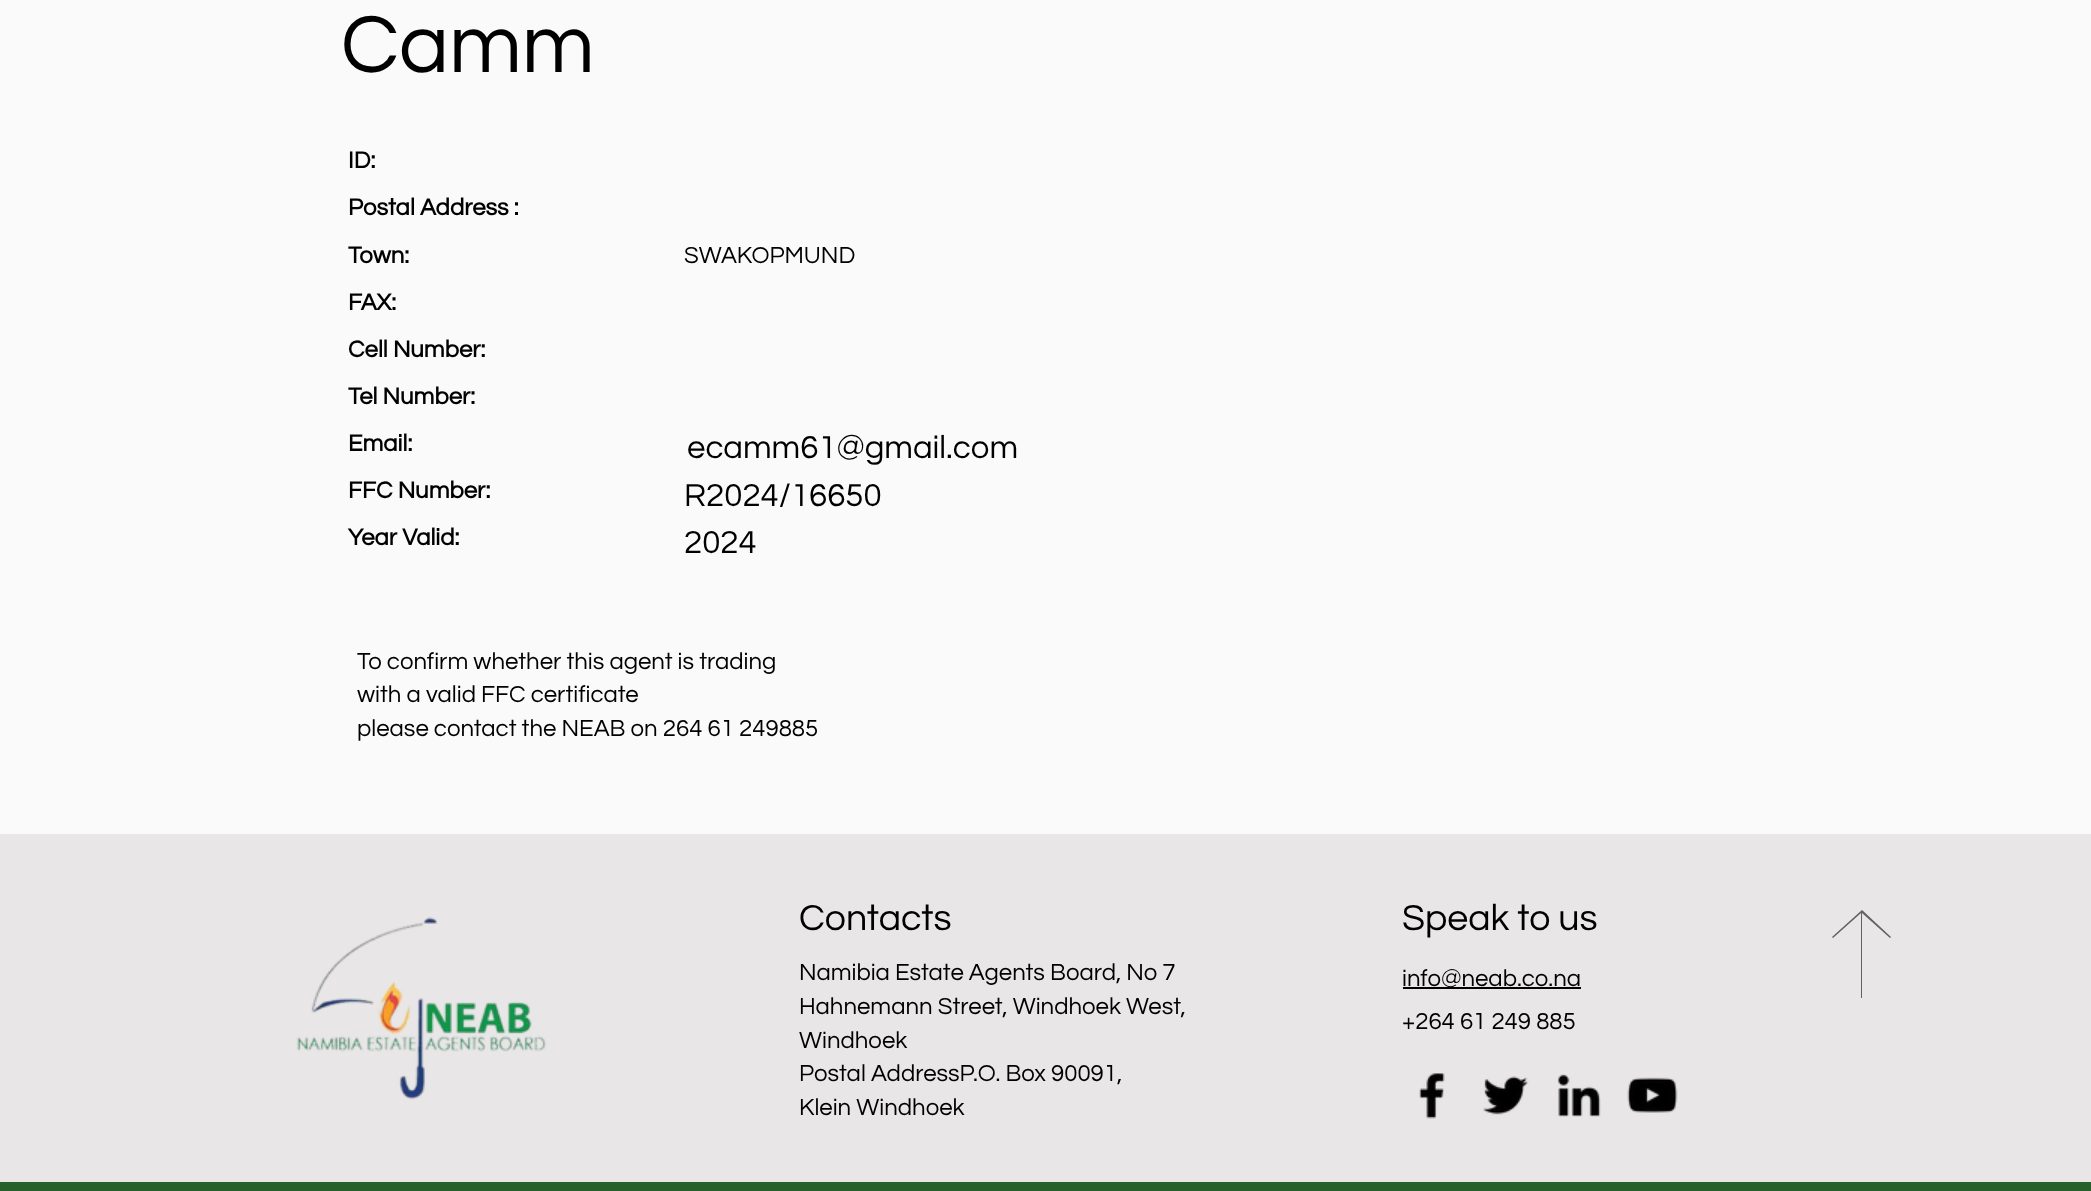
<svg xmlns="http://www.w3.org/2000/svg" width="2091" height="1191">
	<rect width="100%" height="100%" fill="#FAFAFA" />
	<text x="341" y="72" font-family="Questrial" font-size="84" fill="#000000">Camm</text>
	<g font-family="Questrial" font-size="24" font-weight="700" fill="#000000">
		<text x="348" y="168">ID:</text>
		<text x="348" y="215">Postal Address :</text>
		<text x="348" y="263">Town:</text>
	</g>
	<text x="684" y="263" font-family="Questrial" font-size="24" fill="#000000">SWAKOPMUND</text>
	<g font-family="Questrial" font-size="24" font-weight="700" fill="#000000">
		<text x="348" y="310">FAX:</text>
		<text x="348" y="357">Cell Number:</text>
		<text x="348" y="404">Tel Number:</text>
		<text x="348" y="451">Email:</text>
	</g>
	<text x="687" y="458" font-family="Questrial" font-size="33" fill="#000000">ecamm61@gmail.com</text>
	<text x="348" y="498" font-family="Questrial" font-size="24" font-weight="700" fill="#000000">FFC Number:</text>
	<text x="684" y="506" font-family="Questrial" font-size="33" fill="#000000">R2024/16650</text>
	<text x="348" y="545" font-family="Questrial" font-size="24" font-weight="700" fill="#000000">Year Valid:</text>
	<text x="684" y="553" font-family="Questrial" font-size="33" fill="#000000">2024</text>
	<g font-family="Questrial" font-size="24" fill="#000000">
		<text x="357" y="669">To confirm whether this agent is trading</text>
		<text x="357" y="702">with a valid FFC certificate</text>
		<text x="357" y="736">please contact the NEAB on 264 61 249885</text>
	</g>
	<rect x="0" y="834" width="2091" height="348" fill="#E8E6E6" />
	<image x="296" y="917" width="251" height="183" href="assets/img1.png" />
	<text x="799" y="930" font-family="Questrial" font-size="37.5" fill="#000000">Contacts</text>
	<g font-family="Questrial" font-size="24" fill="#000000">
		<text x="799" y="980">Namibia Estate Agents Board, No 7</text>
		<text x="799" y="1014">Hahnemann Street, Windhoek West,</text>
		<text x="799" y="1048">Windhoek</text>
		<text x="799" y="1081">Postal AddressP.O. Box 90091,</text>
		<text x="799" y="1115">Klein Windhoek</text>
	</g>
	<text x="1402" y="930" font-family="Questrial" font-size="37.5" fill="#000000">Speak to us</text>
	<path d="M1891 937L1862 910L1832 937L1833 938L1861 913V998H1862V913L1890 938Z" fill="#616161" />
	<rect x="1403" y="987" width="178" height="2" fill="#000000" />
	<g font-family="Questrial" font-size="24" fill="#000000">
		<text x="1402" y="986">info@neab.co.na</text>
		<text x="1402" y="1029">+264 61 249 885</text>
	</g>
	<image x="1419" y="1073" width="26" height="46" href="assets/img2.png" />
	<image x="1483" y="1076" width="46" height="39" href="assets/img3.png" />
	<image x="1557" y="1074" width="44" height="43" href="assets/img4.png" />
	<image x="1627" y="1077" width="51" height="36" href="assets/img5.png" />
	<rect x="0" y="1182" width="2091" height="9" fill="#28602B" />
</svg>
